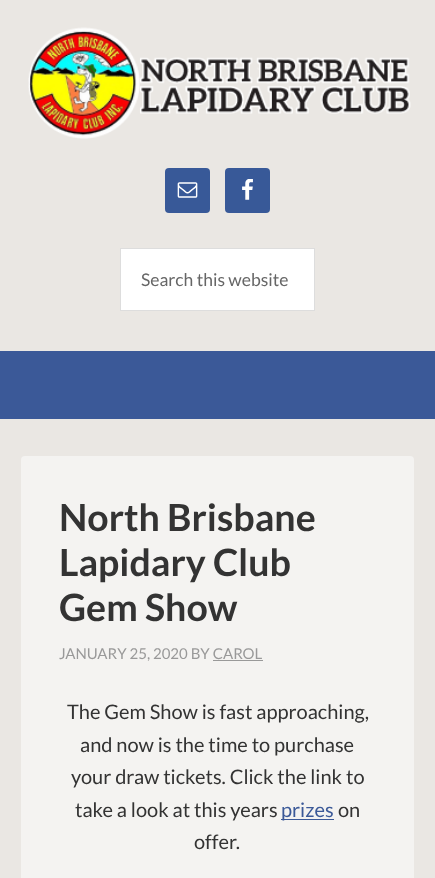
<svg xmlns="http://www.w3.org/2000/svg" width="435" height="878">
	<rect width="100%" height="100%" fill="#EAE7E3" />
	<image x="28" y="27" width="383" height="112" href="assets/img1.png" />
	<rect x="165" y="168" width="45" height="45" rx="4" fill="#385998" />
	<image x="177" y="182" width="21" height="16" href="assets/img2.png" />
	<rect x="225" y="168" width="45" height="45" rx="4" fill="#385998" />
	<image x="242" y="179" width="11" height="21" href="assets/img3.png" />
	<rect x="120.5" y="248.5" width="194" height="62" fill="#FFFFFF" stroke="#DDDDDD" />
	<text x="141" y="286" font-family="Lato" font-size="17.5" fill="#666666">Search this website</text>
	<rect x="0" y="351" width="435" height="68" fill="#3B5998" />
	<rect x="21" y="456" width="393" height="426" rx="4" fill="#F4F3F1" />
	<g font-family="Lato" font-size="37.5" font-weight="700" fill="#333333">
		<text x="59" y="531">North Brisbane</text>
		<text x="59" y="576">Lapidary Club</text>
		<text x="59" y="621">Gem Show</text>
	</g>
	<text x="59" y="659" font-family="Lato" font-size="15" fill="#999999">JANUARY 25, 2020 BY CAROL</text>
	<rect x="213" y="660" width="50" height="1" fill="#999999" />
	<g font-family="Lato" font-size="20" fill="#333333">
		<text x="67" y="719">The Gem Show is fast approaching,</text>
		<text x="80" y="752">and now is the time to purchase</text>
		<text x="71" y="784">your draw tickets. Click the link to</text>
		<text x="75" y="817">take a look at this years</text>
	</g>
	<rect x="281" y="819" width="53" height="1" fill="#3B5998" />
	<text x="281" y="817" font-family="Lato" font-size="20" fill="#3B5998">prizes</text>
	<g font-family="Lato" font-size="20" fill="#333333">
		<text x="338" y="817">on</text>
		<text x="194" y="849">offer.</text>
	</g>
</svg>
